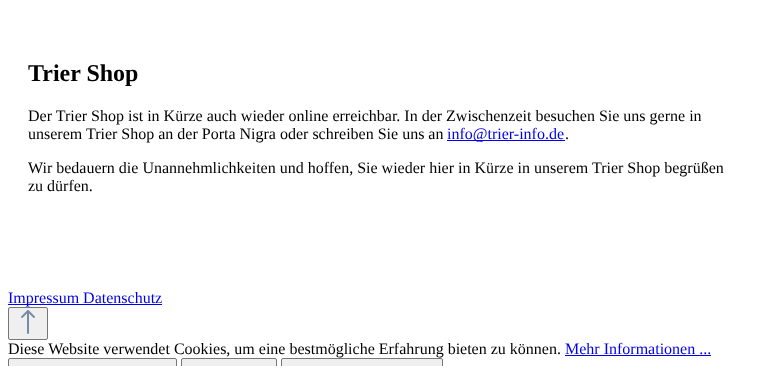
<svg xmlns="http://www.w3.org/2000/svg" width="762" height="366">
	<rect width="100%" height="100%" fill="#FFFFFF" />
	<text x="28" y="81" font-family="Liberation Serif" font-size="24" font-weight="700" fill="#000000">Trier Shop</text>
	<g font-family="Liberation Serif" font-size="16" fill="#000000">
		<text x="28" y="121">Der Trier Shop ist in Kürze auch wieder online erreichbar. In der Zwischenzeit besuchen Sie uns gerne in</text>
		<text x="28" y="139">unserem Trier Shop an der Porta Nigra oder schreiben Sie uns an</text>
	</g>
	<rect x="447" y="140" width="118" height="1" fill="#0000EE" />
	<text x="447" y="139" font-family="Liberation Serif" font-size="16" fill="#0000EE">info@trier-info.de</text>
	<g font-family="Liberation Serif" font-size="16" fill="#000000">
		<text x="565" y="139">.</text>
		<text x="28" y="173">Wir bedauern die Unannehmlichkeiten und hoffen, Sie wieder hier in Kürze in unserem Trier Shop begrüßen</text>
		<text x="28" y="191">zu dürfen.</text>
	</g>
	<rect x="8" y="304" width="154" height="1" fill="#0000EE" />
	<text x="8" y="303" font-family="Liberation Serif" font-size="16" fill="#0000EE">Impressum Datenschutz</text>
	<rect x="8.5" y="307.5" width="39" height="32" rx="1.5" fill="#EFEFEF" stroke="#767676" />
	<image x="21" y="310" width="14" height="24" href="assets/img1.png" />
	<text x="8" y="354" font-family="Liberation Serif" font-size="16" fill="#000000">Diese Website verwendet Cookies, um eine bestmögliche Erfahrung bieten zu können.</text>
	<text x="565" y="354" font-family="Liberation Serif" font-size="16" fill="#0000EE">Mehr Informationen ...</text>
	<rect x="565" y="355" width="146" height="1" fill="#0000EE" />
	<rect x="8.5" y="358.5" width="168" height="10" rx="1.5" fill="#EFEFEF" stroke="#767676" />
	<rect x="181.5" y="358.5" width="95" height="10" rx="1.5" fill="#EFEFEF" stroke="#767676" />
	<rect x="281.5" y="358.5" width="161" height="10" rx="1.5" fill="#EFEFEF" stroke="#767676" />
</svg>
